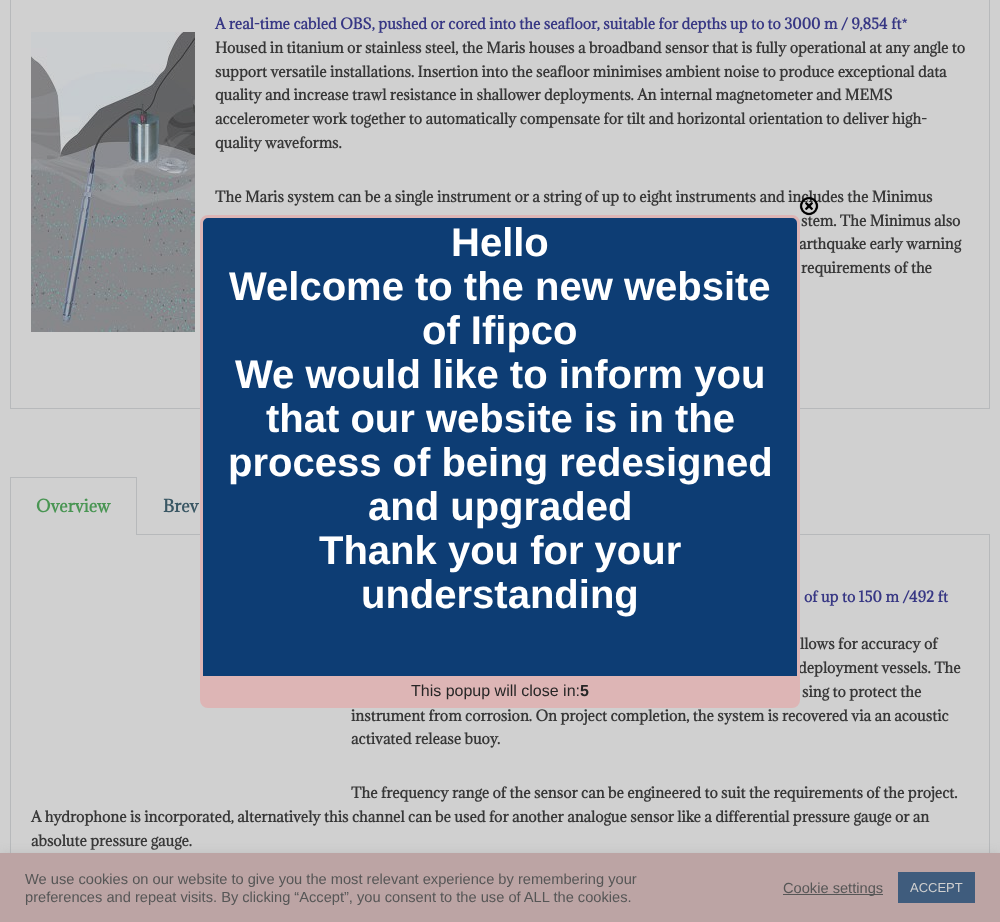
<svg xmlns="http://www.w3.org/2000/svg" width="1000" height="922">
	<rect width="100%" height="100%" fill="#D0D0D0" />
	<rect x="989" y="0" width="1" height="409" fill="#B7B9BB" />
	<rect x="10" y="408" width="980" height="1" fill="#B7B9BB" />
	<rect x="10" y="0" width="1" height="409" fill="#B7B9BB" />
	<text x="215" y="29" font-family="Adamina" font-size="14" font-weight="700" fill="#373784">A real-time cabled OBS, pushed or cored into the seafloor, suitable for depths up to to 3000 m / 9,854 ft*</text>
	<image x="31" y="32" width="164" height="300" href="assets/img1.png" />
	<g font-family="Adamina" font-size="14" font-weight="700" fill="#373737">
		<text x="215" y="53">Housed in titanium or stainless steel, the Maris houses a broadband sensor that is fully operational at any angle to</text>
		<text x="215" y="77">support versatile installations. Insertion into the seafloor minimises ambient noise to produce exceptional data</text>
		<text x="215" y="100">quality and increase trawl resistance in shallower deployments. An internal magnetometer and MEMS</text>
		<text x="215" y="124">accelerometer work together to automatically compensate for tilt and horizontal orientation to deliver high-</text>
		<text x="215" y="148">quality waveforms.</text>
		<text x="215" y="202">The Maris system can be a single instrument or a string of up to eight instruments and includes the Minimus</text>
		<text x="801" y="226">stem. The Minimus also</text>
		<text x="799" y="249">arthquake early warning</text>
		<text x="801" y="273">requirements of the</text>
	</g>
	<rect x="10" y="477" width="127" height="1" fill="#B7B9BB" />
	<rect x="136" y="477" width="1" height="58" fill="#B7B9BB" />
	<rect x="10" y="477" width="1" height="58" fill="#B7B9BB" />
	<text x="36" y="512" font-family="Adamina" font-size="16" font-weight="700" fill="#499553">Overview</text>
	<rect x="136" y="534" width="854" height="1" fill="#B7B9BB" />
	<text x="163" y="512" font-family="Adamina" font-size="16" font-weight="700" fill="#3A5764">Brev</text>
	<rect x="989" y="535" width="1" height="318" fill="#B7B9BB" />
	<rect x="10" y="535" width="1" height="318" fill="#B7B9BB" />
	<text x="804" y="602" font-family="Adamina" font-size="14" font-weight="700" fill="#373784">of up to 150 m /492 ft</text>
	<g font-family="Adamina" font-size="14" font-weight="700" fill="#373737">
		<text x="800" y="649">llows for accuracy of</text>
		<text x="798" y="673">deployment vessels. The</text>
		<text x="802" y="697">sing to protect the</text>
		<text x="351" y="721">instrument from corrosion. On project completion, the system is recovered via an acoustic</text>
		<text x="351" y="744">activated release buoy.</text>
		<text x="351" y="798">The frequency range of the sensor can be engineered to suit the requirements of the project.</text>
		<text x="31" y="822">A hydrophone is incorporated, alternatively this channel can be used for another analogue sensor like a differential pressure gauge or an</text>
		<text x="31" y="846">absolute pressure gauge.</text>
	</g>
	<rect x="201.5" y="216.5" width="597" height="490" rx="6.5" fill="#0D3D74" stroke="#DDB5B5" stroke-width="3" />
	<image x="799" y="196" width="20" height="20" href="assets/img2.png" />
	<g font-family="Liberation Sans" font-size="40" font-weight="700" fill="#FFFFFF">
		<text x="451" y="256">Hello</text>
		<text x="229" y="300">Welcome to the new website</text>
		<text x="422" y="344">of Ifipco</text>
		<text x="235" y="388">We would like to inform you</text>
		<text x="266" y="432">that our website is in the</text>
		<text x="228" y="476">process of being redesigned</text>
		<text x="368" y="520">and upgraded</text>
		<text x="319" y="564">Thank you for your</text>
		<text x="361" y="608">understanding</text>
	</g>
	<rect x="203" y="676" width="594" height="29" fill="#DDB5B5" />
	<text x="411" y="696" font-family="Liberation Sans" font-size="16" fill="#272626">This popup will close in:</text>
	<text x="580" y="696" font-family="Liberation Sans" font-size="16" font-weight="700" fill="#272626">5</text>
	<rect x="0" y="852" width="1000" height="69" fill="#9E9E9E" fill-opacity="0.3" filter="blur(5px)" />
	<rect x="0" y="853" width="1000" height="69" fill="#BCA4A4" />
	<g font-family="Liberation Sans" font-size="14.65" fill="#565656">
		<text x="25" y="884">We use cookies on our website to give you the most relevant experience by remembering your</text>
		<text x="25" y="902">preferences and repeat visits. By clicking “Accept”, you consent to the use of ALL the cookies.</text>
	</g>
	<rect x="783" y="894" width="100" height="1" fill="#565656" />
	<text x="783" y="893" font-family="Liberation Sans" font-size="14.65" fill="#565656">Cookie settings</text>
	<rect x="898" y="872" width="77" height="31" fill="#3F5C7D" />
	<text x="910" y="892" font-family="Liberation Sans" font-size="13" fill="#D0D0D0">ACCEPT</text>
</svg>
